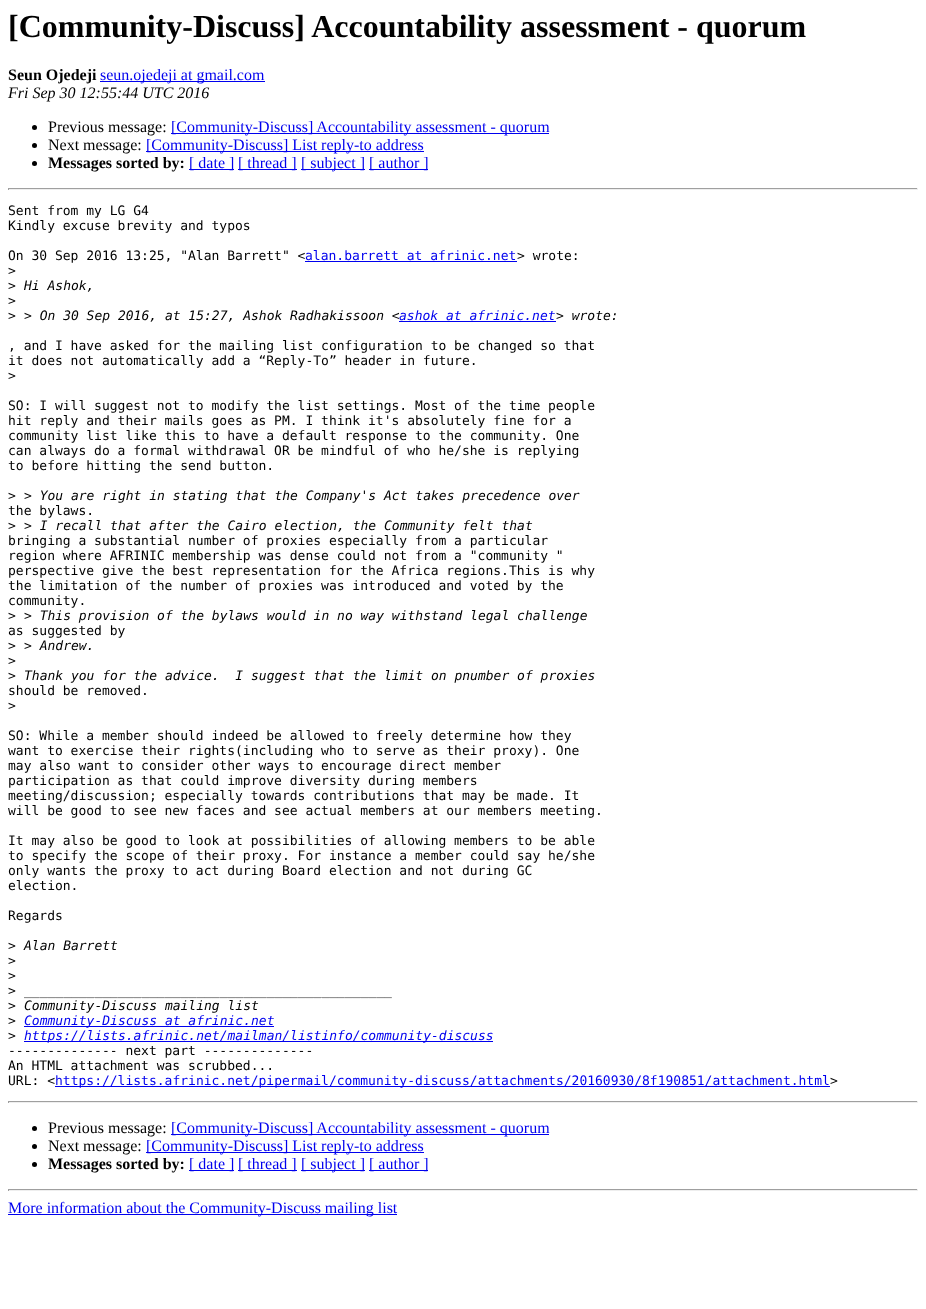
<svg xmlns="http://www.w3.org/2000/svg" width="926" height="1309">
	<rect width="100%" height="100%" fill="#FFFFFF" />
	<text x="8" y="37" font-family="Liberation Serif" font-size="32" font-weight="700" fill="#000000">[Community-Discuss] Accountability assessment - quorum</text>
	<text x="8" y="80" font-family="Liberation Serif" font-size="16" font-weight="700" fill="#000000">Seun Ojedeji</text>
	<rect x="100" y="81" width="165" height="1" fill="#0000EE" />
	<text x="100" y="80" font-family="Liberation Serif" font-size="16" fill="#0000EE">seun.ojedeji at gmail.com</text>
	<text x="8" y="98" font-family="Liberation Serif" font-size="16" font-style="italic" fill="#000000">Fri Sep 30 12:55:44 UTC 2016</text>
	<circle cx="34.5" cy="127.5" r="2.5" fill="#000000" />
	<text x="48" y="132" font-family="Liberation Serif" font-size="16" fill="#000000">Previous message:</text>
	<rect x="171" y="133" width="378" height="1" fill="#0000EE" />
	<text x="171" y="132" font-family="Liberation Serif" font-size="16" fill="#0000EE">[Community-Discuss] Accountability assessment - quorum</text>
	<circle cx="34.5" cy="145.5" r="2.5" fill="#000000" />
	<text x="48" y="150" font-family="Liberation Serif" font-size="16" fill="#000000">Next message:</text>
	<rect x="146" y="151" width="278" height="1" fill="#0000EE" />
	<text x="146" y="150" font-family="Liberation Serif" font-size="16" fill="#0000EE">[Community-Discuss] List reply-to address</text>
	<circle cx="34.5" cy="163.5" r="2.5" fill="#000000" />
	<text x="48" y="168" font-family="Liberation Serif" font-size="16" font-weight="700" fill="#000000">Messages sorted by:</text>
	<rect x="189" y="169" width="45" height="1" fill="#0000EE" />
	<text x="189" y="168" font-family="Liberation Serif" font-size="16" fill="#0000EE">[ date ]</text>
	<rect x="238" y="169" width="59" height="1" fill="#0000EE" />
	<text x="238" y="168" font-family="Liberation Serif" font-size="16" fill="#0000EE">[ thread ]</text>
	<rect x="301" y="169" width="64" height="1" fill="#0000EE" />
	<text x="301" y="168" font-family="Liberation Serif" font-size="16" fill="#0000EE">[ subject ]</text>
	<rect x="369" y="169" width="59" height="1" fill="#0000EE" />
	<text x="369" y="168" font-family="Liberation Serif" font-size="16" fill="#0000EE">[ author ]</text>
	<rect x="8" y="188" width="910" height="1" fill="#9F9F9F" />
	<rect x="917" y="188" width="1" height="2" fill="#EEEEEE" />
	<rect x="8" y="189" width="910" height="1" fill="#EEEEEE" />
	<rect x="8" y="188" width="1" height="2" fill="#9F9F9F" />
	<g font-family="DejaVu Sans Mono" font-size="13" fill="#000000">
		<text x="8" y="215">Sent from my LG G4</text>
		<text x="8" y="230">Kindly excuse brevity and typos</text>
		<text x="8" y="260">On 30 Sep 2016 13:25, "Alan Barrett" &lt;</text>
	</g>
	<text x="305" y="260" font-family="DejaVu Sans Mono" font-size="13" fill="#0000EE">alan.barrett at afrinic.net</text>
	<rect x="305" y="261" width="212" height="1" fill="#0000EE" />
	<g font-family="DejaVu Sans Mono" font-size="13" fill="#000000">
		<text x="517" y="260">&gt; wrote:</text>
		<text x="8" y="275">&gt;</text>
		<text x="8" y="290">&gt;</text>
	</g>
	<text x="24" y="290" font-family="DejaVu Sans Mono" font-size="13" font-style="italic" fill="#000000">Hi Ashok,</text>
	<g font-family="DejaVu Sans Mono" font-size="13" fill="#000000">
		<text x="8" y="305">&gt;</text>
		<text x="8" y="320">&gt;</text>
	</g>
	<text x="24" y="320" font-family="DejaVu Sans Mono" font-size="13" font-style="italic" fill="#000000">&gt; On 30 Sep 2016, at 15:27, Ashok Radhakissoon &lt;</text>
	<rect x="399" y="321" width="157" height="1" fill="#0000EE" />
	<text x="399" y="320" font-family="DejaVu Sans Mono" font-size="13" font-style="italic" fill="#0000EE">ashok at afrinic.net</text>
	<text x="556" y="320" font-family="DejaVu Sans Mono" font-size="13" font-style="italic" fill="#000000">&gt; wrote:</text>
	<g font-family="DejaVu Sans Mono" font-size="13" fill="#000000">
		<text x="8" y="350">, and I have asked for the mailing list configuration to be changed so that</text>
		<text x="8" y="365">it does not automatically add a “Reply-To” header in future.</text>
		<text x="8" y="380">&gt;</text>
		<text x="8" y="410">SO: I will suggest not to modify the list settings. Most of the time people</text>
		<text x="8" y="425">hit reply and their mails goes as PM. I think it's absolutely fine for a</text>
		<text x="8" y="440">community list like this to have a default response to the community. One</text>
		<text x="8" y="455">can always do a formal withdrawal OR be mindful of who he/she is replying</text>
		<text x="8" y="470">to before hitting the send button.</text>
		<text x="8" y="500">&gt;</text>
	</g>
	<text x="24" y="500" font-family="DejaVu Sans Mono" font-size="13" font-style="italic" fill="#000000">&gt; You are right in stating that the Company's Act takes precedence over</text>
	<g font-family="DejaVu Sans Mono" font-size="13" fill="#000000">
		<text x="8" y="515">the bylaws.</text>
		<text x="8" y="530">&gt;</text>
	</g>
	<text x="24" y="530" font-family="DejaVu Sans Mono" font-size="13" font-style="italic" fill="#000000">&gt; I recall that after the Cairo election, the Community felt that</text>
	<g font-family="DejaVu Sans Mono" font-size="13" fill="#000000">
		<text x="8" y="545">bringing a substantial number of proxies especially from a particular</text>
		<text x="8" y="560">region where AFRINIC membership was dense could not from a "community "</text>
		<text x="8" y="575">perspective give the best representation for the Africa regions.This is why</text>
		<text x="8" y="590">the limitation of the number of proxies was introduced and voted by the</text>
		<text x="8" y="605">community.</text>
		<text x="8" y="620">&gt;</text>
	</g>
	<text x="24" y="620" font-family="DejaVu Sans Mono" font-size="13" font-style="italic" fill="#000000">&gt; This provision of the bylaws would in no way withstand legal challenge</text>
	<g font-family="DejaVu Sans Mono" font-size="13" fill="#000000">
		<text x="8" y="635">as suggested by</text>
		<text x="8" y="650">&gt;</text>
	</g>
	<text x="24" y="650" font-family="DejaVu Sans Mono" font-size="13" font-style="italic" fill="#000000">&gt; Andrew.</text>
	<g font-family="DejaVu Sans Mono" font-size="13" fill="#000000">
		<text x="8" y="665">&gt;</text>
		<text x="8" y="680">&gt;</text>
	</g>
	<text x="24" y="680" font-family="DejaVu Sans Mono" font-size="13" font-style="italic" fill="#000000" xml:space="preserve">Thank you for the advice.  I suggest that the limit on pnumber of proxies</text>
	<g font-family="DejaVu Sans Mono" font-size="13" fill="#000000">
		<text x="8" y="695">should be removed.</text>
		<text x="8" y="710">&gt;</text>
		<text x="8" y="740">SO: While a member should indeed be allowed to freely determine how they</text>
		<text x="8" y="755">want to exercise their rights(including who to serve as their proxy). One</text>
		<text x="8" y="770">may also want to consider other ways to encourage direct member</text>
		<text x="8" y="785">participation as that could improve diversity during members</text>
		<text x="8" y="800">meeting/discussion; especially towards contributions that may be made. It</text>
		<text x="8" y="815">will be good to see new faces and see actual members at our members meeting.</text>
		<text x="8" y="845">It may also be good to look at possibilities of allowing members to be able</text>
		<text x="8" y="860">to specify the scope of their proxy. For instance a member could say he/she</text>
		<text x="8" y="875">only wants the proxy to act during Board election and not during GC</text>
		<text x="8" y="890">election.</text>
		<text x="8" y="920">Regards</text>
		<text x="8" y="950">&gt;</text>
	</g>
	<text x="24" y="950" font-family="DejaVu Sans Mono" font-size="13" font-style="italic" fill="#000000">Alan Barrett</text>
	<g font-family="DejaVu Sans Mono" font-size="13" fill="#000000">
		<text x="8" y="965">&gt;</text>
		<text x="8" y="980">&gt;</text>
		<text x="8" y="995">&gt;</text>
	</g>
	<text x="24" y="995" font-family="DejaVu Sans Mono" font-size="13" font-style="italic" fill="#000000">_______________________________________________</text>
	<text x="8" y="1010" font-family="DejaVu Sans Mono" font-size="13" fill="#000000">&gt;</text>
	<text x="24" y="1010" font-family="DejaVu Sans Mono" font-size="13" font-style="italic" fill="#000000">Community-Discuss mailing list</text>
	<text x="8" y="1025" font-family="DejaVu Sans Mono" font-size="13" fill="#000000">&gt;</text>
	<rect x="24" y="1026" width="250" height="1" fill="#0000EE" />
	<text x="24" y="1025" font-family="DejaVu Sans Mono" font-size="13" font-style="italic" fill="#0000EE">Community-Discuss at afrinic.net</text>
	<text x="8" y="1040" font-family="DejaVu Sans Mono" font-size="13" fill="#000000">&gt;</text>
	<rect x="24" y="1041" width="469" height="1" fill="#0000EE" />
	<text x="24" y="1040" font-family="DejaVu Sans Mono" font-size="13" font-style="italic" fill="#0000EE">https://lists.afrinic.net/mailman/listinfo/community-discuss</text>
	<g font-family="DejaVu Sans Mono" font-size="13" fill="#000000">
		<text x="8" y="1055">-------------- next part --------------</text>
		<text x="8" y="1070">An HTML attachment was scrubbed...</text>
		<text x="8" y="1085">URL: &lt;</text>
	</g>
	<rect x="55" y="1086" width="775" height="1" fill="#0000EE" />
	<text x="55" y="1085" font-family="DejaVu Sans Mono" font-size="13" fill="#0000EE">https://lists.afrinic.net/pipermail/community-discuss/attachments/20160930/8f190851/attachment.html</text>
	<text x="830" y="1085" font-family="DejaVu Sans Mono" font-size="13" fill="#000000">&gt;</text>
	<rect x="8" y="1101" width="910" height="1" fill="#9F9F9F" />
	<rect x="917" y="1101" width="1" height="2" fill="#EEEEEE" />
	<rect x="8" y="1102" width="910" height="1" fill="#EEEEEE" />
	<rect x="8" y="1101" width="1" height="2" fill="#9F9F9F" />
	<circle cx="34.5" cy="1128.5" r="2.5" fill="#000000" />
	<text x="48" y="1133" font-family="Liberation Serif" font-size="16" fill="#000000">Previous message:</text>
	<rect x="171" y="1134" width="378" height="1" fill="#0000EE" />
	<text x="171" y="1133" font-family="Liberation Serif" font-size="16" fill="#0000EE">[Community-Discuss] Accountability assessment - quorum</text>
	<circle cx="34.5" cy="1146.5" r="2.5" fill="#000000" />
	<text x="48" y="1151" font-family="Liberation Serif" font-size="16" fill="#000000">Next message:</text>
	<rect x="146" y="1152" width="278" height="1" fill="#0000EE" />
	<text x="146" y="1151" font-family="Liberation Serif" font-size="16" fill="#0000EE">[Community-Discuss] List reply-to address</text>
	<circle cx="34.5" cy="1164.5" r="2.5" fill="#000000" />
	<text x="48" y="1169" font-family="Liberation Serif" font-size="16" font-weight="700" fill="#000000">Messages sorted by:</text>
	<rect x="189" y="1170" width="45" height="1" fill="#0000EE" />
	<text x="189" y="1169" font-family="Liberation Serif" font-size="16" fill="#0000EE">[ date ]</text>
	<rect x="238" y="1170" width="59" height="1" fill="#0000EE" />
	<text x="238" y="1169" font-family="Liberation Serif" font-size="16" fill="#0000EE">[ thread ]</text>
	<rect x="301" y="1170" width="64" height="1" fill="#0000EE" />
	<text x="301" y="1169" font-family="Liberation Serif" font-size="16" fill="#0000EE">[ subject ]</text>
	<rect x="369" y="1170" width="59" height="1" fill="#0000EE" />
	<text x="369" y="1169" font-family="Liberation Serif" font-size="16" fill="#0000EE">[ author ]</text>
	<rect x="8" y="1189" width="910" height="1" fill="#9F9F9F" />
	<rect x="917" y="1189" width="1" height="2" fill="#EEEEEE" />
	<rect x="8" y="1190" width="910" height="1" fill="#EEEEEE" />
	<rect x="8" y="1189" width="1" height="2" fill="#9F9F9F" />
	<rect x="8" y="1214" width="389" height="1" fill="#0000EE" />
	<text x="8" y="1213" font-family="Liberation Serif" font-size="16" fill="#0000EE">More information about the Community-Discuss mailing list</text>
</svg>
